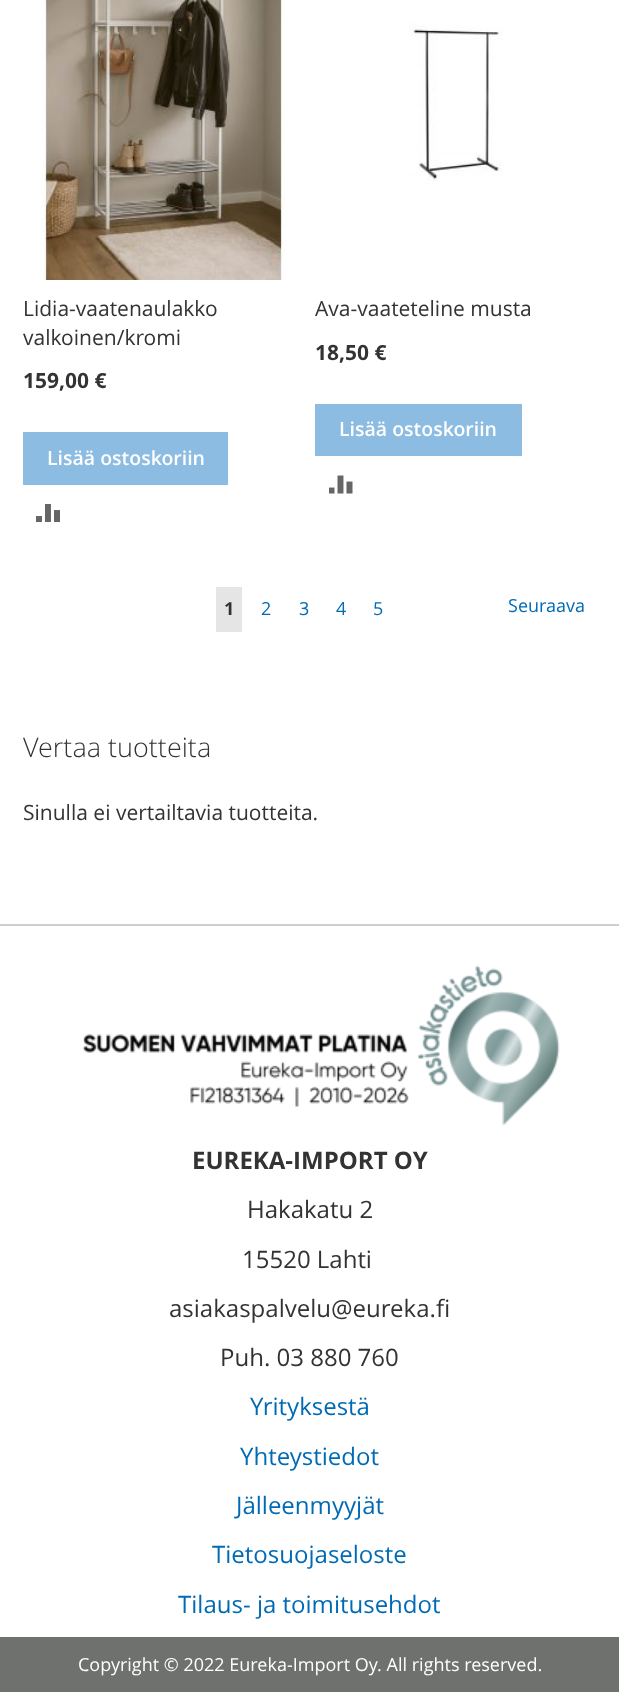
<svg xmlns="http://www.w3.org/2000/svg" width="619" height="1692">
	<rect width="100%" height="100%" fill="#FFFFFF" />
	<image x="41" y="0" width="245" height="280" href="assets/img1.png" />
	<g font-family="Open Sans" font-size="21" fill="#333333">
		<text x="23" y="316">Lidia-vaatenaulakko</text>
		<text x="23" y="345">valkoinen/kromi</text>
	</g>
	<text x="23" y="388" font-family="Open Sans" font-size="21" font-weight="700" fill="#333333">159,00 €</text>
	<rect x="23" y="432" width="205" height="53" fill="#8CBCE1" />
	<text x="47" y="465" font-family="Open Sans" font-size="19.5" font-weight="600" fill="#FFFFFF">Lisää ostoskoriin</text>
	<image x="36" y="504" width="24" height="18" href="assets/img2.png" />
	<image x="409" y="23" width="94" height="158" href="assets/img3.png" />
	<text x="315" y="316" font-family="Open Sans" font-size="21" fill="#333333">Ava-vaateteline musta</text>
	<text x="315" y="360" font-family="Open Sans" font-size="21" font-weight="700" fill="#333333">18,50 €</text>
	<rect x="315" y="404" width="207" height="52" fill="#8CBCE1" />
	<text x="339" y="436" font-family="Open Sans" font-size="19.5" font-weight="600" fill="#FFFFFF">Lisää ostoskoriin</text>
	<image x="329" y="475" width="24" height="19" href="assets/img4.png" />
	<rect x="216" y="587" width="26" height="45" fill="#E5E5E5" />
	<text x="224" y="615" font-family="Open Sans" font-size="18" font-weight="700" fill="#333333">1</text>
	<g font-family="Open Sans" font-size="18" fill="#006BB4">
		<text x="261" y="615">2</text>
		<text x="299" y="615">3</text>
		<text x="336" y="615">4</text>
		<text x="373" y="615">5</text>
		<text x="508" y="612">Seuraava</text>
	</g>
	<text x="23" y="757" font-family="Open Sans" font-size="27" font-weight="300" fill="#333333">Vertaa tuotteita</text>
	<text x="23" y="820" font-family="Open Sans" font-size="21" fill="#333333">Sinulla ei vertailtavia tuotteita.</text>
	<rect x="0" y="924" width="619" height="2" fill="#CECECE" />
	<image x="82" y="965" width="478" height="161" href="assets/img5.png" />
	<text x="192" y="1169" font-family="Open Sans" font-size="24" font-weight="700" fill="#333333">EUREKA-IMPORT OY</text>
	<g font-family="Open Sans" font-size="24" fill="#333333">
		<text x="247" y="1218">Hakakatu 2</text>
		<text x="242" y="1268">15520 Lahti</text>
		<text x="169" y="1317">asiakaspalvelu@eureka.fi</text>
		<text x="220" y="1366">Puh. 03 880 760</text>
	</g>
	<g font-family="Open Sans" font-size="24" fill="#006BB4">
		<text x="250" y="1415">Yrityksestä</text>
		<text x="240" y="1465">Yhteystiedot</text>
		<text x="236" y="1514">Jälleenmyyjät</text>
		<text x="212" y="1563">Tietosuojaseloste</text>
		<text x="178" y="1613">Tilaus- ja toimitusehdot</text>
	</g>
	<rect x="0" y="1637" width="619" height="55" fill="#6E716E" />
	<text x="78" y="1671" font-family="Open Sans" font-size="18" fill="#FFFFFF">Copyright © 2022 Eureka-Import Oy. All rights reserved.</text>
</svg>
